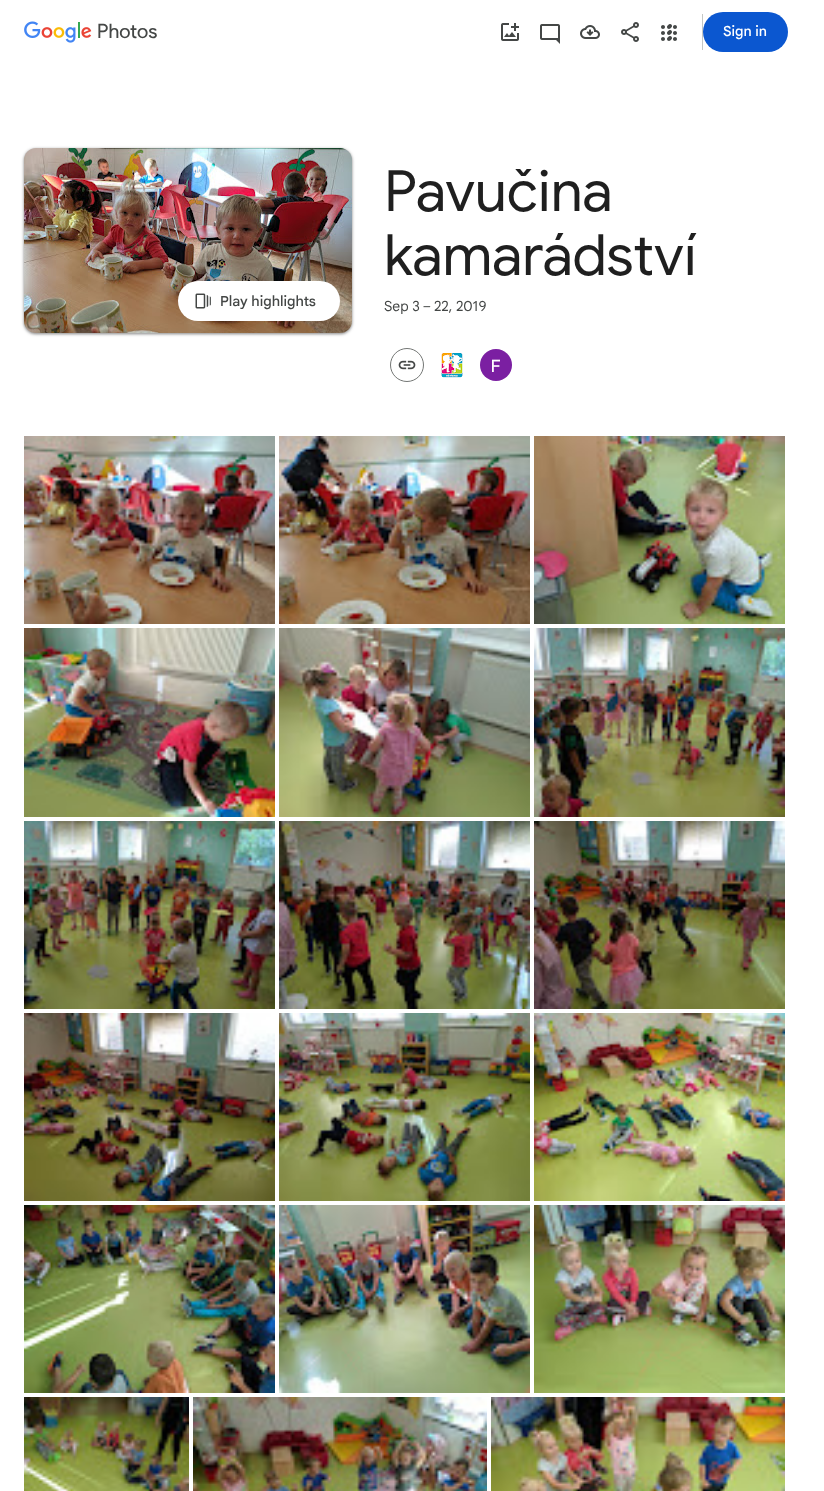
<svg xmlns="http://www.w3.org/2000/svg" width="824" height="1491">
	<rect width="100%" height="100%" fill="#FFFFFF" />
	<image x="24" y="21" width="68" height="22" href="assets/img1.png" />
	<text x="97" y="38" font-family="Product Sans" font-size="20" fill="#444746">Photos</text>
	<image x="501" y="23" width="18" height="18" href="assets/img2.png" />
	<image x="540" y="24" width="20" height="20" href="assets/img3.png" />
	<image x="580" y="25" width="20" height="14" href="assets/img4.png" />
	<image x="621" y="22" width="18" height="20" href="assets/img5.png" />
	<image x="668" y="24" width="4" height="16" href="assets/img6.png" />
	<rect x="702" y="14" width="1" height="36" fill="#C4C7C5" />
	<rect x="23" y="148" width="330" height="187" rx="13" fill="#000000" fill-opacity="0.15" filter="blur(1.5px)" />
	<rect x="24" y="149" width="328" height="185" rx="12" fill="#000000" fill-opacity="0.3" filter="blur(1px)" />
	<image x="24" y="148" width="328" height="185" href="assets/img7.png" />
	<rect x="178" y="281" width="162" height="40" rx="20" fill="#FFFFFF" />
	<image x="195" y="293" width="16" height="16" href="assets/img8.png" />
	<text x="220" y="306" font-family="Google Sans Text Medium" font-size="14" font-weight="500" fill="#444746">Play highlights</text>
	<g font-family="Google Sans" font-size="57" fill="#1F1F1F">
		<text x="384" y="211">Pavučina</text>
		<text x="384" y="275">kamarádství</text>
	</g>
	<text x="384" y="311" font-family="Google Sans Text" font-size="14" fill="#444746">Sep 3 – 22, 2019</text>
	<circle cx="407" cy="365" r="16.5" fill="none" stroke="#747775" />
	<image x="398" y="360" width="18" height="10" href="assets/img9.png" />
	<image x="441" y="353" width="22" height="25" href="assets/img10.png" />
	<image x="480" y="349" width="32" height="32" href="assets/img11.png" />
	<image x="24" y="436" width="251" height="188" href="assets/img12.png" />
	<image x="279" y="436" width="251" height="188" href="assets/img13.png" />
	<image x="534" y="436" width="251" height="188" href="assets/img14.png" />
	<image x="24" y="628" width="251" height="189" href="assets/img15.png" />
	<image x="279" y="628" width="251" height="189" href="assets/img16.png" />
	<image x="534" y="628" width="251" height="189" href="assets/img17.png" />
	<image x="24" y="821" width="251" height="188" href="assets/img18.png" />
	<image x="279" y="821" width="251" height="188" href="assets/img19.png" />
	<image x="534" y="821" width="251" height="188" href="assets/img20.png" />
	<image x="24" y="1013" width="251" height="188" href="assets/img21.png" />
	<image x="279" y="1013" width="251" height="188" href="assets/img22.png" />
	<image x="534" y="1013" width="251" height="188" href="assets/img23.png" />
	<image x="24" y="1205" width="251" height="188" href="assets/img24.png" />
	<image x="279" y="1205" width="251" height="188" href="assets/img25.png" />
	<image x="534" y="1205" width="251" height="188" href="assets/img26.png" />
	<image x="24" y="1397" width="165" height="94" href="assets/img27.png" />
	<image x="193" y="1397" width="294" height="94" href="assets/img28.png" />
	<image x="491" y="1397" width="294" height="94" href="assets/img29.png" />
	<image x="661" y="25" width="16" height="16" href="assets/img30.png" />
	<rect x="703" y="12" width="85" height="40" rx="20" fill="#0B57D0" />
	<text x="723" y="36" font-family="Google Sans Text Medium" font-size="14" font-weight="500" fill="#FFFFFF">Sign in</text>
</svg>
